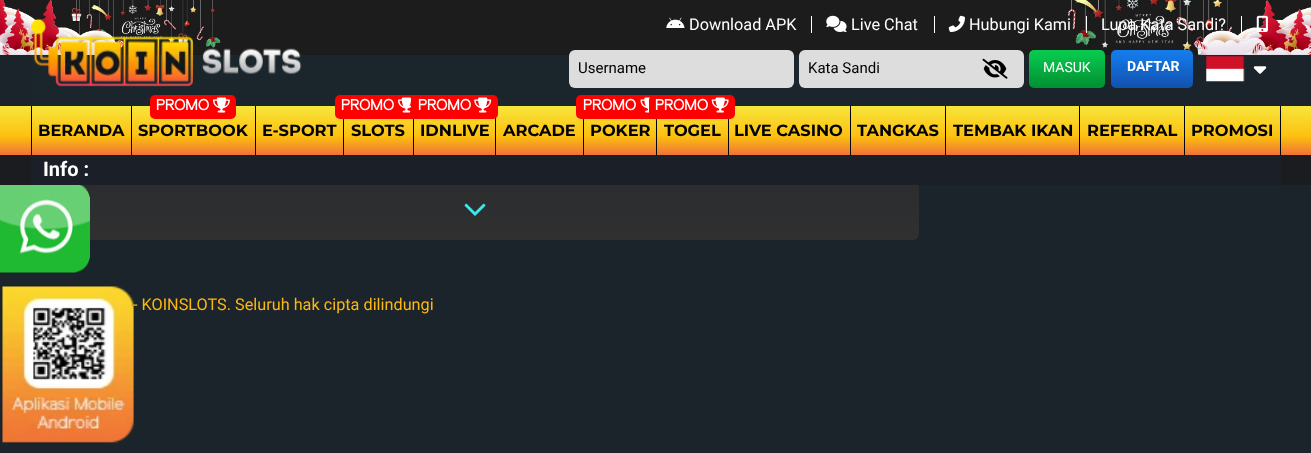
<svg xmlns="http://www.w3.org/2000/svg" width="1311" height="453">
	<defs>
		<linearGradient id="g1" gradientUnits="userSpaceOnUse" x1="475" y1="22" x2="475" y2="240"><stop offset="0" stop-color="#1B242A" /><stop offset="1" stop-color="#303030" /></linearGradient>
		<linearGradient id="g2" gradientUnits="userSpaceOnUse" x1="1067" y1="50" x2="1067" y2="88"><stop offset="0" stop-color="#08CA4D" /><stop offset="0.09" stop-color="#06C74A" /><stop offset="0.22" stop-color="#08C14A" /><stop offset="0.3" stop-color="#04BB45" /><stop offset="0.35" stop-color="#06B846" /><stop offset="0.74" stop-color="#039E38" /><stop offset="1" stop-color="#009134" /></linearGradient>
		<linearGradient id="g3" gradientUnits="userSpaceOnUse" x1="1152" y1="50" x2="1152" y2="88"><stop offset="0" stop-color="#147CEB" /><stop offset="0.25" stop-color="#1574E0" /><stop offset="0.35" stop-color="#136ED7" /><stop offset="0.8" stop-color="#125ABC" /><stop offset="0.95" stop-color="#1253AF" /><stop offset="1" stop-color="#1253AF" /></linearGradient>
		<linearGradient id="g4" gradientUnits="userSpaceOnUse" x1="656" y1="106" x2="656" y2="155"><stop offset="0" stop-color="#F8E63B" /><stop offset="0.62" stop-color="#FCC010" /><stop offset="1" stop-color="#F07237" /></linearGradient>
	</defs>
	<rect width="100%" height="100%" fill="#1B242A" />
	<rect x="31" y="23" width="888" height="217" rx="6" fill="url(#g1)" />
	<rect x="31" y="54" width="888" height="52" fill="#1B262C" />
	<image x="0" y="0" width="1311" height="55" href="assets/img1.png" />
	<image x="31" y="18" width="271" height="69" href="assets/img2.png" />
	<image x="666" y="17" width="19" height="11" href="assets/img3.png" />
	<text x="689" y="30" font-family="Roboto" font-size="16.25" fill="#FFFFFF">Download APK</text>
	<rect x="811" y="16" width="1" height="17" fill="#FFFFFF" />
	<image x="826" y="15" width="21" height="17" href="assets/img4.png" />
	<text x="851" y="30" font-family="Roboto" font-size="16.25" fill="#FFFFFF">Live Chat</text>
	<rect x="934" y="16" width="1" height="17" fill="#FFFFFF" />
	<image x="948" y="15" width="17" height="17" href="assets/img5.png" />
	<text x="969" y="30" font-family="Roboto" font-size="16.25" fill="#FFFFFF">Hubungi Kami</text>
	<rect x="1086" y="16" width="1" height="17" fill="#FFFFFF" />
	<text x="1101" y="30" font-family="Roboto" font-size="16.25" fill="#FFFFFF">Lupa Kata Sandi?</text>
	<rect x="1241" y="16" width="1" height="17" fill="#FFFFFF" />
	<image x="1256" y="15" width="12" height="17" href="assets/img6.png" />
	<rect x="569" y="50" width="225" height="38" rx="6" fill="#DDDDDD" />
	<text x="578" y="73" font-family="Roboto" font-size="15" fill="#000000">Username</text>
	<rect x="799" y="50" width="225" height="38" rx="6" fill="#DDDDDD" />
	<text x="808" y="73" font-family="Roboto" font-size="15" fill="#000000">Kata Sandi</text>
	<image x="982" y="58" width="26" height="21" href="assets/img7.png" />
	<rect x="1029" y="50" width="76" height="38" rx="5" fill="url(#g2)" />
	<text x="1043" y="72" font-family="Roboto" font-size="14" fill="#FFFFFF">MASUK</text>
	<rect x="1111" y="50" width="82" height="38" rx="5" fill="url(#g3)" />
	<text x="1127" y="71" font-family="Roboto" font-size="14" font-weight="700" fill="#FFFFFF">DAFTAR</text>
	<image x="1206" y="56" width="39" height="26" href="assets/img8.png" />
	<image x="1253" y="66" width="14" height="8" href="assets/img9.png" />
	<rect x="0" y="106" width="1311" height="49" fill="url(#g4)" />
	<rect x="131" y="106" width="1" height="49" fill="#000000" />
	<rect x="31" y="106" width="1" height="49" fill="#000000" />
	<text x="38" y="136" font-family="Montserrat" font-size="16.25" font-weight="700" fill="#000000">BERANDA</text>
	<rect x="255" y="106" width="1" height="49" fill="#000000" />
	<rect x="150" y="95" width="86" height="24" rx="5" fill="#FF0000" />
	<text x="156" y="110" font-family="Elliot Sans" font-size="15" font-weight="700" fill="#FFFFFF">PROMO</text>
	<image x="213" y="97" width="17" height="16" href="assets/img10.png" />
	<text x="138" y="136" font-family="Montserrat" font-size="16.25" font-weight="700" fill="#000000">SPORTBOOK</text>
	<rect x="343" y="119" width="1" height="36" fill="#000000" />
	<text x="262" y="136" font-family="Montserrat" font-size="16.25" font-weight="700" fill="#000000">E-SPORT</text>
	<rect x="413" y="119" width="1" height="36" fill="#000000" />
	<rect x="335" y="95" width="85" height="24" rx="5" fill="#FF0000" />
	<text x="341" y="110" font-family="Elliot Sans" font-size="15" font-weight="700" fill="#FFFFFF">PROMO</text>
	<image x="398" y="97" width="14" height="16" href="assets/img11.png" />
	<text x="351" y="136" font-family="Montserrat" font-size="16.25" font-weight="700" fill="#000000">SLOTS</text>
	<rect x="495" y="118" width="1" height="37" fill="#000000" />
	<rect x="411" y="95" width="87" height="24" rx="5" fill="#FF0000" />
	<text x="418" y="110" font-family="Elliot Sans" font-size="15" font-weight="700" fill="#FFFFFF">PROMO</text>
	<image x="474" y="97" width="18" height="16" href="assets/img12.png" />
	<text x="420" y="136" font-family="Montserrat" font-size="16.25" font-weight="700" fill="#000000">IDNLIVE</text>
	<rect x="583" y="119" width="1" height="36" fill="#000000" />
	<text x="503" y="136" font-family="Montserrat" font-size="16.25" font-weight="700" fill="#000000">ARCADE</text>
	<rect x="656" y="119" width="1" height="36" fill="#000000" />
	<rect x="576" y="95" width="87" height="24" rx="5" fill="#FF0000" />
	<text x="583" y="110" font-family="Elliot Sans" font-size="15" font-weight="700" fill="#FFFFFF">PROMO</text>
	<image x="640" y="97" width="10" height="16" href="assets/img13.png" />
	<text x="590" y="136" font-family="Montserrat" font-size="16.25" font-weight="700" fill="#000000">POKER</text>
	<rect x="728" y="119" width="1" height="36" fill="#000000" />
	<rect x="649" y="95" width="86" height="24" rx="5" fill="#FF0000" />
	<text x="655" y="110" font-family="Elliot Sans" font-size="15" font-weight="700" fill="#FFFFFF">PROMO</text>
	<image x="711" y="97" width="18" height="16" href="assets/img14.png" />
	<text x="664" y="136" font-family="Montserrat" font-size="16.25" font-weight="700" fill="#000000">TOGEL</text>
	<rect x="850" y="106" width="1" height="49" fill="#000000" />
	<text x="734" y="136" font-family="Montserrat" font-size="16.25" font-weight="700" fill="#000000">LIVE CASINO</text>
	<rect x="945" y="106" width="1" height="49" fill="#000000" />
	<text x="857" y="136" font-family="Montserrat" font-size="16.25" font-weight="700" fill="#000000">TANGKAS</text>
	<rect x="1079" y="106" width="1" height="49" fill="#000000" />
	<text x="953" y="136" font-family="Montserrat" font-size="16.25" font-weight="700" fill="#000000">TEMBAK IKAN</text>
	<rect x="1184" y="106" width="1" height="49" fill="#000000" />
	<text x="1087" y="136" font-family="Montserrat" font-size="16.25" font-weight="700" fill="#000000">REFERRAL</text>
	<rect x="1280" y="106" width="1" height="49" fill="#000000" />
	<text x="1191" y="136" font-family="Montserrat" font-size="16.25" font-weight="700" fill="#000000">PROMOSI</text>
	<rect x="0" y="155" width="1311" height="30" fill="#1A1C20" />
	<rect x="31" y="155" width="1250" height="30" fill="#1A1F28" />
	<text x="43" y="176" font-family="Roboto" font-size="20" font-weight="700" fill="#FFFFFF">Info :</text>
	<image x="0" y="185" width="90" height="88" href="assets/img15.png" />
	<text x="133" y="310" font-family="Roboto" font-size="16.25" fill="#FCB712">- KOINSLOTS. Seluruh hak cipta dilindungi</text>
	<image x="2" y="286" width="132" height="157" href="assets/img16.png" />
	<image x="464" y="203" width="22" height="13" href="assets/img17.png" />
</svg>
